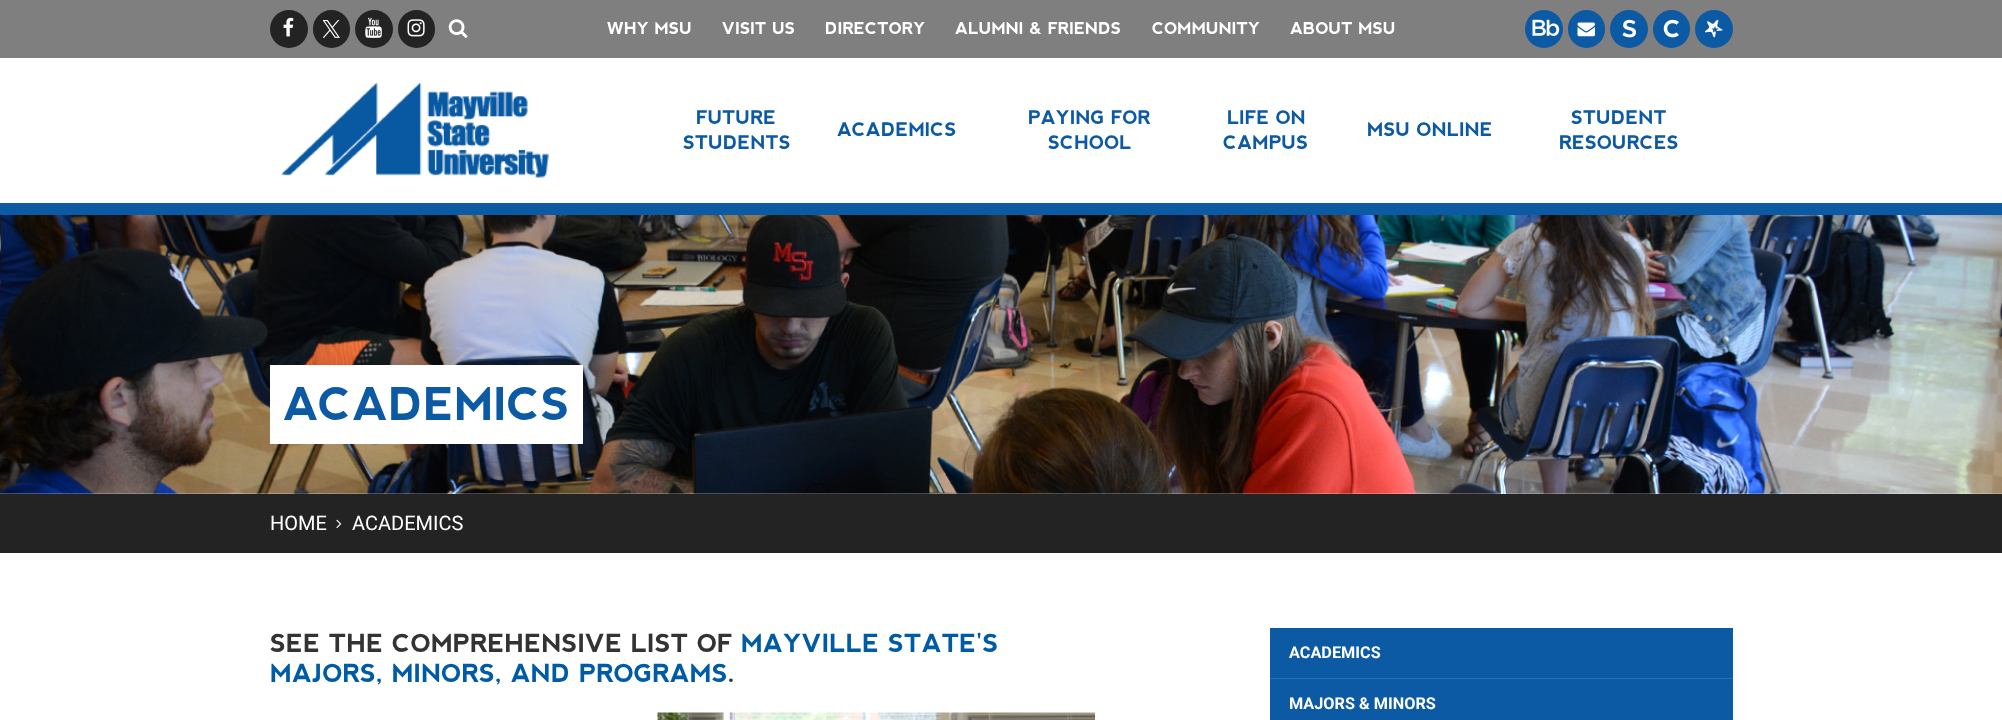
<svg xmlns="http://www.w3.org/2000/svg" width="2002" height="720">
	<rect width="100%" height="100%" fill="#FFFFFF" />
	<rect x="0" y="0" width="2002" height="58" fill="#7F7F7F" />
	<circle cx="289" cy="29" r="19" fill="#232323" />
	<image x="283" y="17" width="11" height="20" href="assets/img1.png" />
	<rect x="313" y="10" width="37" height="38" rx="18.5" fill="#232323" />
	<image x="323" y="20" width="17" height="18" href="assets/img2.png" />
	<circle cx="374" cy="29" r="19" fill="#232323" />
	<image x="365" y="17" width="17" height="21" href="assets/img3.png" />
	<rect x="398" y="10" width="37" height="38" rx="18.5" fill="#232323" />
	<image x="407" y="19" width="18" height="18" href="assets/img4.png" />
	<image x="448" y="19" width="20" height="19" href="assets/img5.png" />
	<g font-family="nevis" font-size="16.25" font-weight="700" fill="#FFFFFF">
		<text x="607" y="34">WHY MSU</text>
		<text x="722" y="34">VISIT US</text>
		<text x="825" y="34">DIRECTORY</text>
		<text x="955" y="34">ALUMNI &amp; FRIENDS</text>
		<text x="1152" y="34">COMMUNITY</text>
		<text x="1290" y="34">ABOUT MSU</text>
	</g>
	<circle cx="1544" cy="29" r="19" fill="#0C59A4" />
	<image x="1532" y="19" width="28" height="17" href="assets/img6.png" />
	<rect x="1568" y="10" width="37" height="38" rx="18.5" fill="#0C59A4" />
	<image x="1577" y="22" width="18" height="15" href="assets/img7.png" />
	<circle cx="1629" cy="29" r="19" fill="#0C59A4" />
	<image x="1622" y="19" width="15" height="19" href="assets/img8.png" />
	<rect x="1653" y="10" width="37" height="38" rx="18.5" fill="#0C59A4" />
	<image x="1663" y="19" width="16" height="19" href="assets/img9.png" />
	<circle cx="1714" cy="29" r="19" fill="#0C59A4" />
	<image x="1705" y="19" width="18" height="19" href="assets/img10.png" />
	<rect x="0" y="203" width="2002" height="12" fill="#0C59A4" />
	<image x="281" y="82" width="268" height="96" href="assets/img11.png" />
	<g font-family="nevis" font-size="18.75" font-weight="700" fill="#0C59A4">
		<text x="696" y="124">FUTURE</text>
		<text x="683" y="149">STUDENTS</text>
		<text x="837" y="136">ACADEMICS</text>
		<text x="1028" y="124">PAYING FOR</text>
		<text x="1048" y="149">SCHOOL</text>
		<text x="1227" y="124">LIFE ON</text>
		<text x="1223" y="149">CAMPUS</text>
		<text x="1367" y="136">MSU ONLINE</text>
		<text x="1571" y="124">STUDENT</text>
		<text x="1559" y="149">RESOURCES</text>
	</g>
	<image x="0" y="215" width="2002" height="279" href="assets/img12.png" />
	<rect x="270" y="365" width="313" height="79" fill="#FFFFFF" />
	<text x="283" y="420" font-family="nevis" font-size="45" font-weight="700" fill="#0C59A4">ACADEMICS</text>
	<rect x="0" y="494" width="2002" height="59" fill="#232323" />
	<text x="270" y="530" font-family="Roboto" font-size="20" fill="#FFFFFF">HOME</text>
	<image x="336" y="519" width="6" height="9" href="assets/img13.png" />
	<text x="352" y="530" font-family="Roboto" font-size="20" fill="#FFFFFF">ACADEMICS</text>
	<text x="270" y="652" font-family="nevis" font-size="25" font-weight="700" fill="#333333">SEE THE COMPREHENSIVE LIST OF</text>
	<g font-family="nevis" font-size="25" font-weight="700" fill="#005BA7">
		<text x="741" y="652">MAYVILLE STATE'S</text>
		<text x="270" y="682">MAJORS, MINORS, AND PROGRAMS</text>
	</g>
	<text x="728" y="682" font-family="nevis" font-size="25" font-weight="700" fill="#333333">.</text>
	<image x="657" y="712" width="438" height="8" href="assets/img14.png" />
	<rect x="1270" y="628" width="463" height="50" fill="#0C59A4" />
	<rect x="1270" y="678" width="463" height="1" fill="#1977B7" />
	<text x="1289" y="658" font-family="Roboto" font-size="16.25" font-weight="700" fill="#FFFFFF">ACADEMICS</text>
	<rect x="1270" y="679" width="463" height="41" fill="#0C59A4" />
	<text x="1289" y="709" font-family="Roboto" font-size="16.25" font-weight="700" fill="#FFFFFF">MAJORS &amp; MINORS</text>
</svg>
